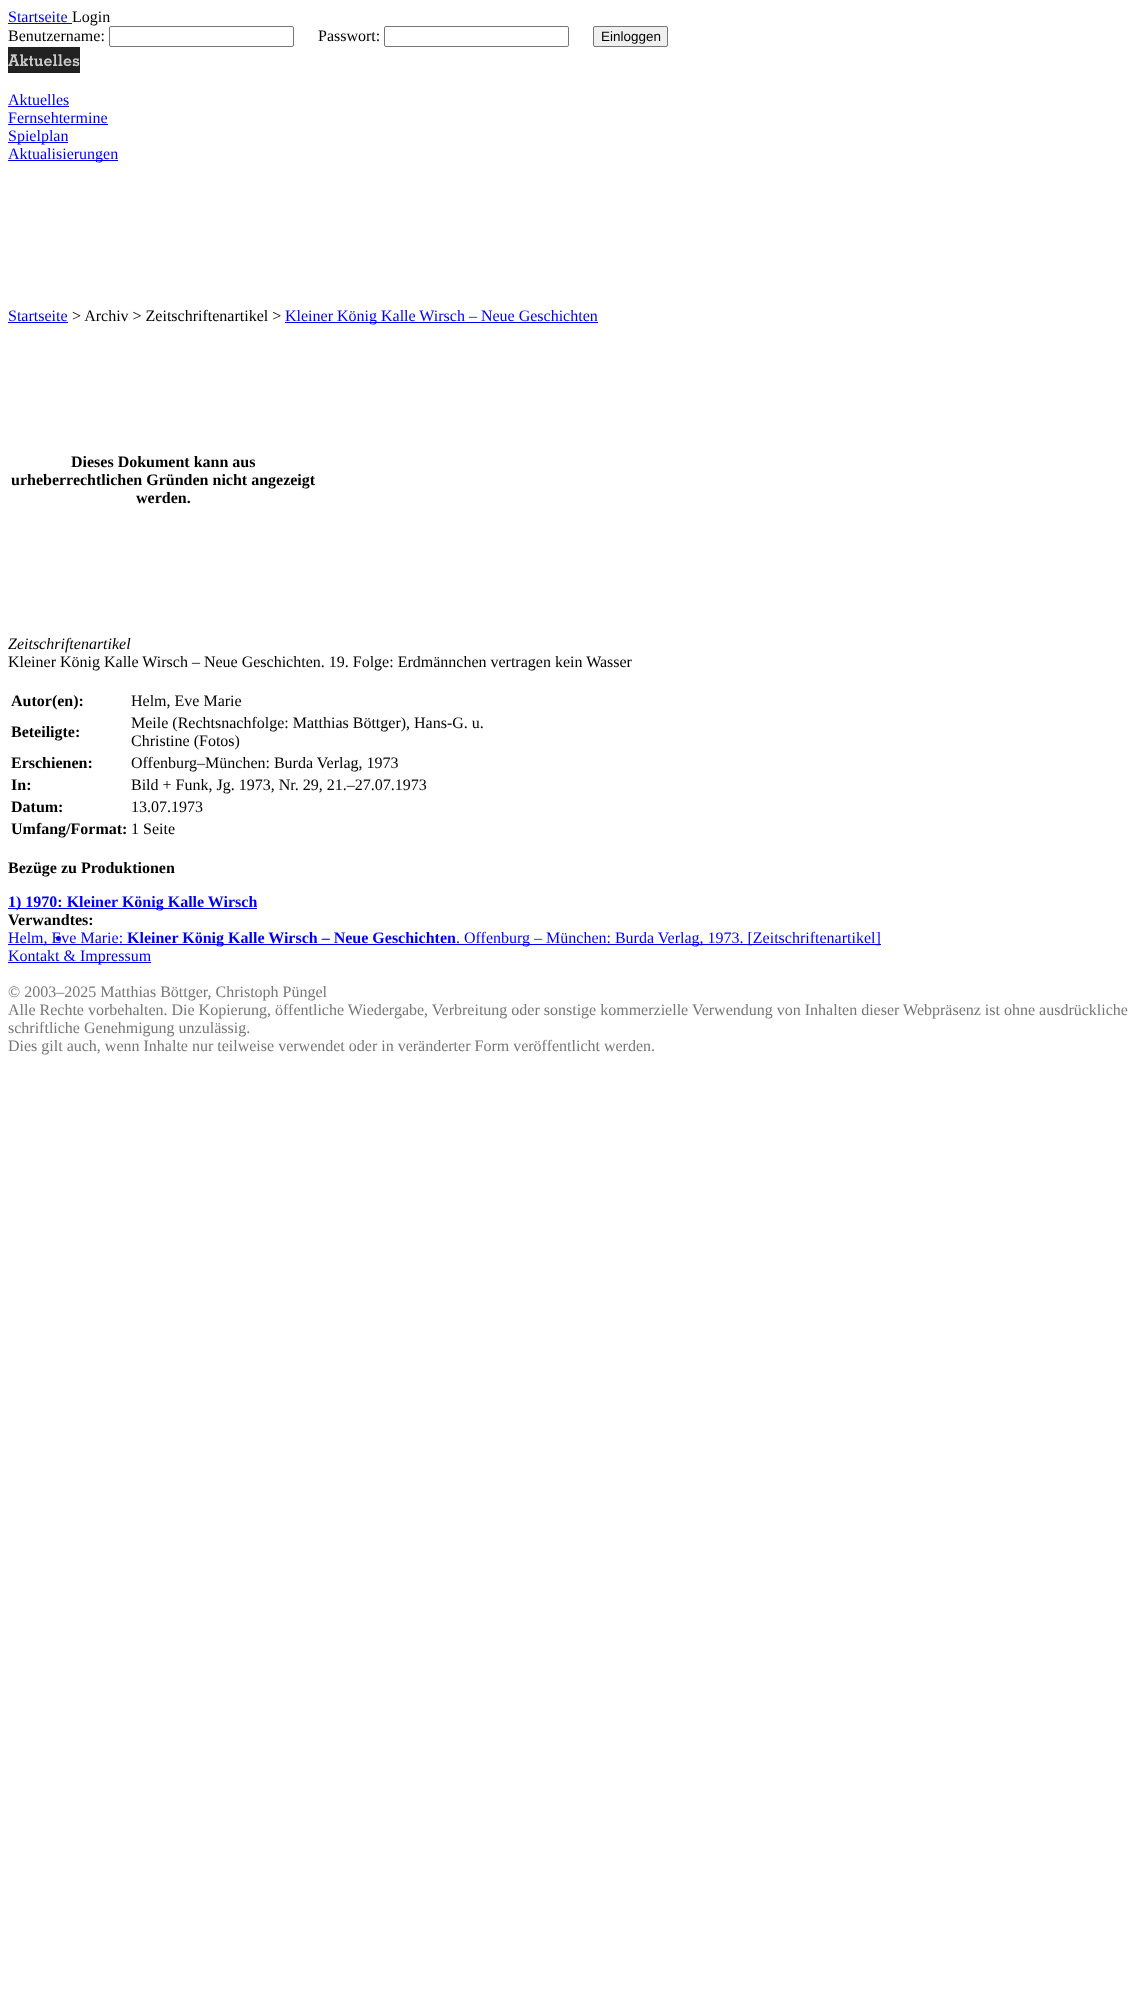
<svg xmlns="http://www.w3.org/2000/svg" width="1145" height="2002">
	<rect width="100%" height="100%" fill="#FFFFFF" />
	<text x="8" y="22" font-family="Liberation Serif" font-size="16" fill="#0000EE">Startseite</text>
	<rect x="8" y="23" width="64" height="1" fill="#0000EE" />
	<g font-family="Liberation Serif" font-size="16" fill="#000000">
		<text x="72" y="22">Login</text>
		<text x="8" y="41">Benutzername:</text>
	</g>
	<rect x="109.5" y="26.5" width="184" height="20" rx="1.5" fill="none" stroke="#767676" />
	<text x="318" y="41" font-family="Liberation Serif" font-size="16" fill="#000000">Passwort:</text>
	<rect x="384.5" y="26.5" width="184" height="20" rx="1.5" fill="none" stroke="#767676" />
	<rect x="593.5" y="26.5" width="74" height="20" rx="1.5" fill="#EFEFEF" stroke="#767676" />
	<text x="601" y="41" font-family="Liberation Sans" font-size="13.5" fill="#000000">Einloggen</text>
	<image x="8" y="47" width="72" height="26" href="assets/img1.png" />
	<text x="8" y="105" font-family="Liberation Serif" font-size="16" fill="#0000EE">Aktuelles</text>
	<rect x="8" y="106" width="61" height="1" fill="#0000EE" />
	<text x="8" y="123" font-family="Liberation Serif" font-size="16" fill="#0000EE">Fernsehtermine</text>
	<rect x="8" y="124" width="100" height="1" fill="#0000EE" />
	<rect x="8" y="142" width="60" height="1" fill="#0000EE" />
	<text x="8" y="141" font-family="Liberation Serif" font-size="16" fill="#0000EE">Spielplan</text>
	<rect x="8" y="160" width="110" height="1" fill="#0000EE" />
	<g font-family="Liberation Serif" font-size="16" fill="#0000EE">
		<text x="8" y="159">Aktualisierungen</text>
		<text x="8" y="321">Startseite</text>
	</g>
	<rect x="8" y="322" width="60" height="1" fill="#0000EE" />
	<text x="72" y="321" font-family="Liberation Serif" font-size="16" fill="#000000">&gt; Archiv &gt; Zeitschriftenartikel &gt;</text>
	<rect x="285" y="322" width="313" height="1" fill="#0000EE" />
	<text x="285" y="321" font-family="Liberation Serif" font-size="16" fill="#0000EE">Kleiner König Kalle Wirsch – Neue Geschichten</text>
	<g font-family="Liberation Serif" font-size="16" font-weight="700" fill="#000000">
		<text x="71" y="467">Dieses Dokument kann aus</text>
		<text x="11" y="485">urheberrechtlichen Gründen nicht angezeigt</text>
		<text x="136" y="503">werden.</text>
	</g>
	<text x="8" y="649" font-family="Liberation Serif" font-size="16" font-style="italic" fill="#000000">Zeitschriftenartikel</text>
	<text x="8" y="667" font-family="Liberation Serif" font-size="16" fill="#000000">Kleiner König Kalle Wirsch – Neue Geschichten. 19. Folge: Erdmännchen vertragen kein Wasser</text>
	<text x="11" y="706" font-family="Liberation Serif" font-size="16" font-weight="700" fill="#000000">Autor(en):</text>
	<text x="131" y="706" font-family="Liberation Serif" font-size="16" fill="#000000">Helm, Eve Marie</text>
	<text x="11" y="737" font-family="Liberation Serif" font-size="16" font-weight="700" fill="#000000">Beteiligte:</text>
	<g font-family="Liberation Serif" font-size="16" fill="#000000">
		<text x="131" y="728">Meile (Rechtsnachfolge: Matthias Böttger), Hans-G. u.</text>
		<text x="131" y="746">Christine (Fotos)</text>
	</g>
	<text x="11" y="768" font-family="Liberation Serif" font-size="16" font-weight="700" fill="#000000">Erschienen:</text>
	<text x="131" y="768" font-family="Liberation Serif" font-size="16" fill="#000000">Offenburg–München: Burda Verlag, 1973</text>
	<text x="11" y="790" font-family="Liberation Serif" font-size="16" font-weight="700" fill="#000000">In:</text>
	<text x="131" y="790" font-family="Liberation Serif" font-size="16" fill="#000000">Bild + Funk, Jg. 1973, Nr. 29, 21.–27.07.1973</text>
	<text x="11" y="812" font-family="Liberation Serif" font-size="16" font-weight="700" fill="#000000">Datum:</text>
	<text x="131" y="812" font-family="Liberation Serif" font-size="16" fill="#000000">13.07.1973</text>
	<text x="11" y="834" font-family="Liberation Serif" font-size="16" font-weight="700" fill="#000000">Umfang/Format:</text>
	<text x="131" y="834" font-family="Liberation Serif" font-size="16" fill="#000000">1 Seite</text>
	<text x="8" y="873" font-family="Liberation Serif" font-size="16" font-weight="700" fill="#000000">Bezüge zu Produktionen</text>
	<rect x="8" y="908" width="249" height="1" fill="#0000EE" />
	<text x="8" y="907" font-family="Liberation Serif" font-size="16" font-weight="700" fill="#0000EE">1) 1970: Kleiner König Kalle Wirsch</text>
	<text x="8" y="925" font-family="Liberation Serif" font-size="16" font-weight="700" fill="#000000">Verwandtes:</text>
	<rect x="8" y="944" width="873" height="1" fill="#0000EE" />
	<circle cx="58.5" cy="938.5" r="2.5" fill="#0000EE" />
	<text x="8" y="943" font-family="Liberation Serif" font-size="16" fill="#0000EE">Helm, Eve Marie:</text>
	<text x="127" y="943" font-family="Liberation Serif" font-size="16" font-weight="700" fill="#0000EE">Kleiner König Kalle Wirsch – Neue Geschichten</text>
	<text x="456" y="943" font-family="Liberation Serif" font-size="16" fill="#0000EE">. Offenburg – München: Burda Verlag, 1973. [Zeitschriftenartikel]</text>
	<rect x="8" y="962" width="143" height="1" fill="#0000EE" />
	<text x="8" y="961" font-family="Liberation Serif" font-size="16" fill="#0000EE">Kontakt &amp; Impressum</text>
	<g font-family="Liberation Serif" font-size="16" fill="#777777">
		<text x="8" y="997">© 2003–2025 Matthias Böttger, Christoph Püngel</text>
		<text x="8" y="1015">Alle Rechte vorbehalten. Die Kopierung, öffentliche Wiedergabe, Verbreitung oder sonstige kommerzielle Verwendung von Inhalten dieser Webpräsenz ist ohne ausdrückliche</text>
		<text x="8" y="1033">schriftliche Genehmigung unzulässig.</text>
		<text x="8" y="1051">Dies gilt auch, wenn Inhalte nur teilweise verwendet oder in veränderter Form veröffentlicht werden.</text>
	</g>
</svg>
